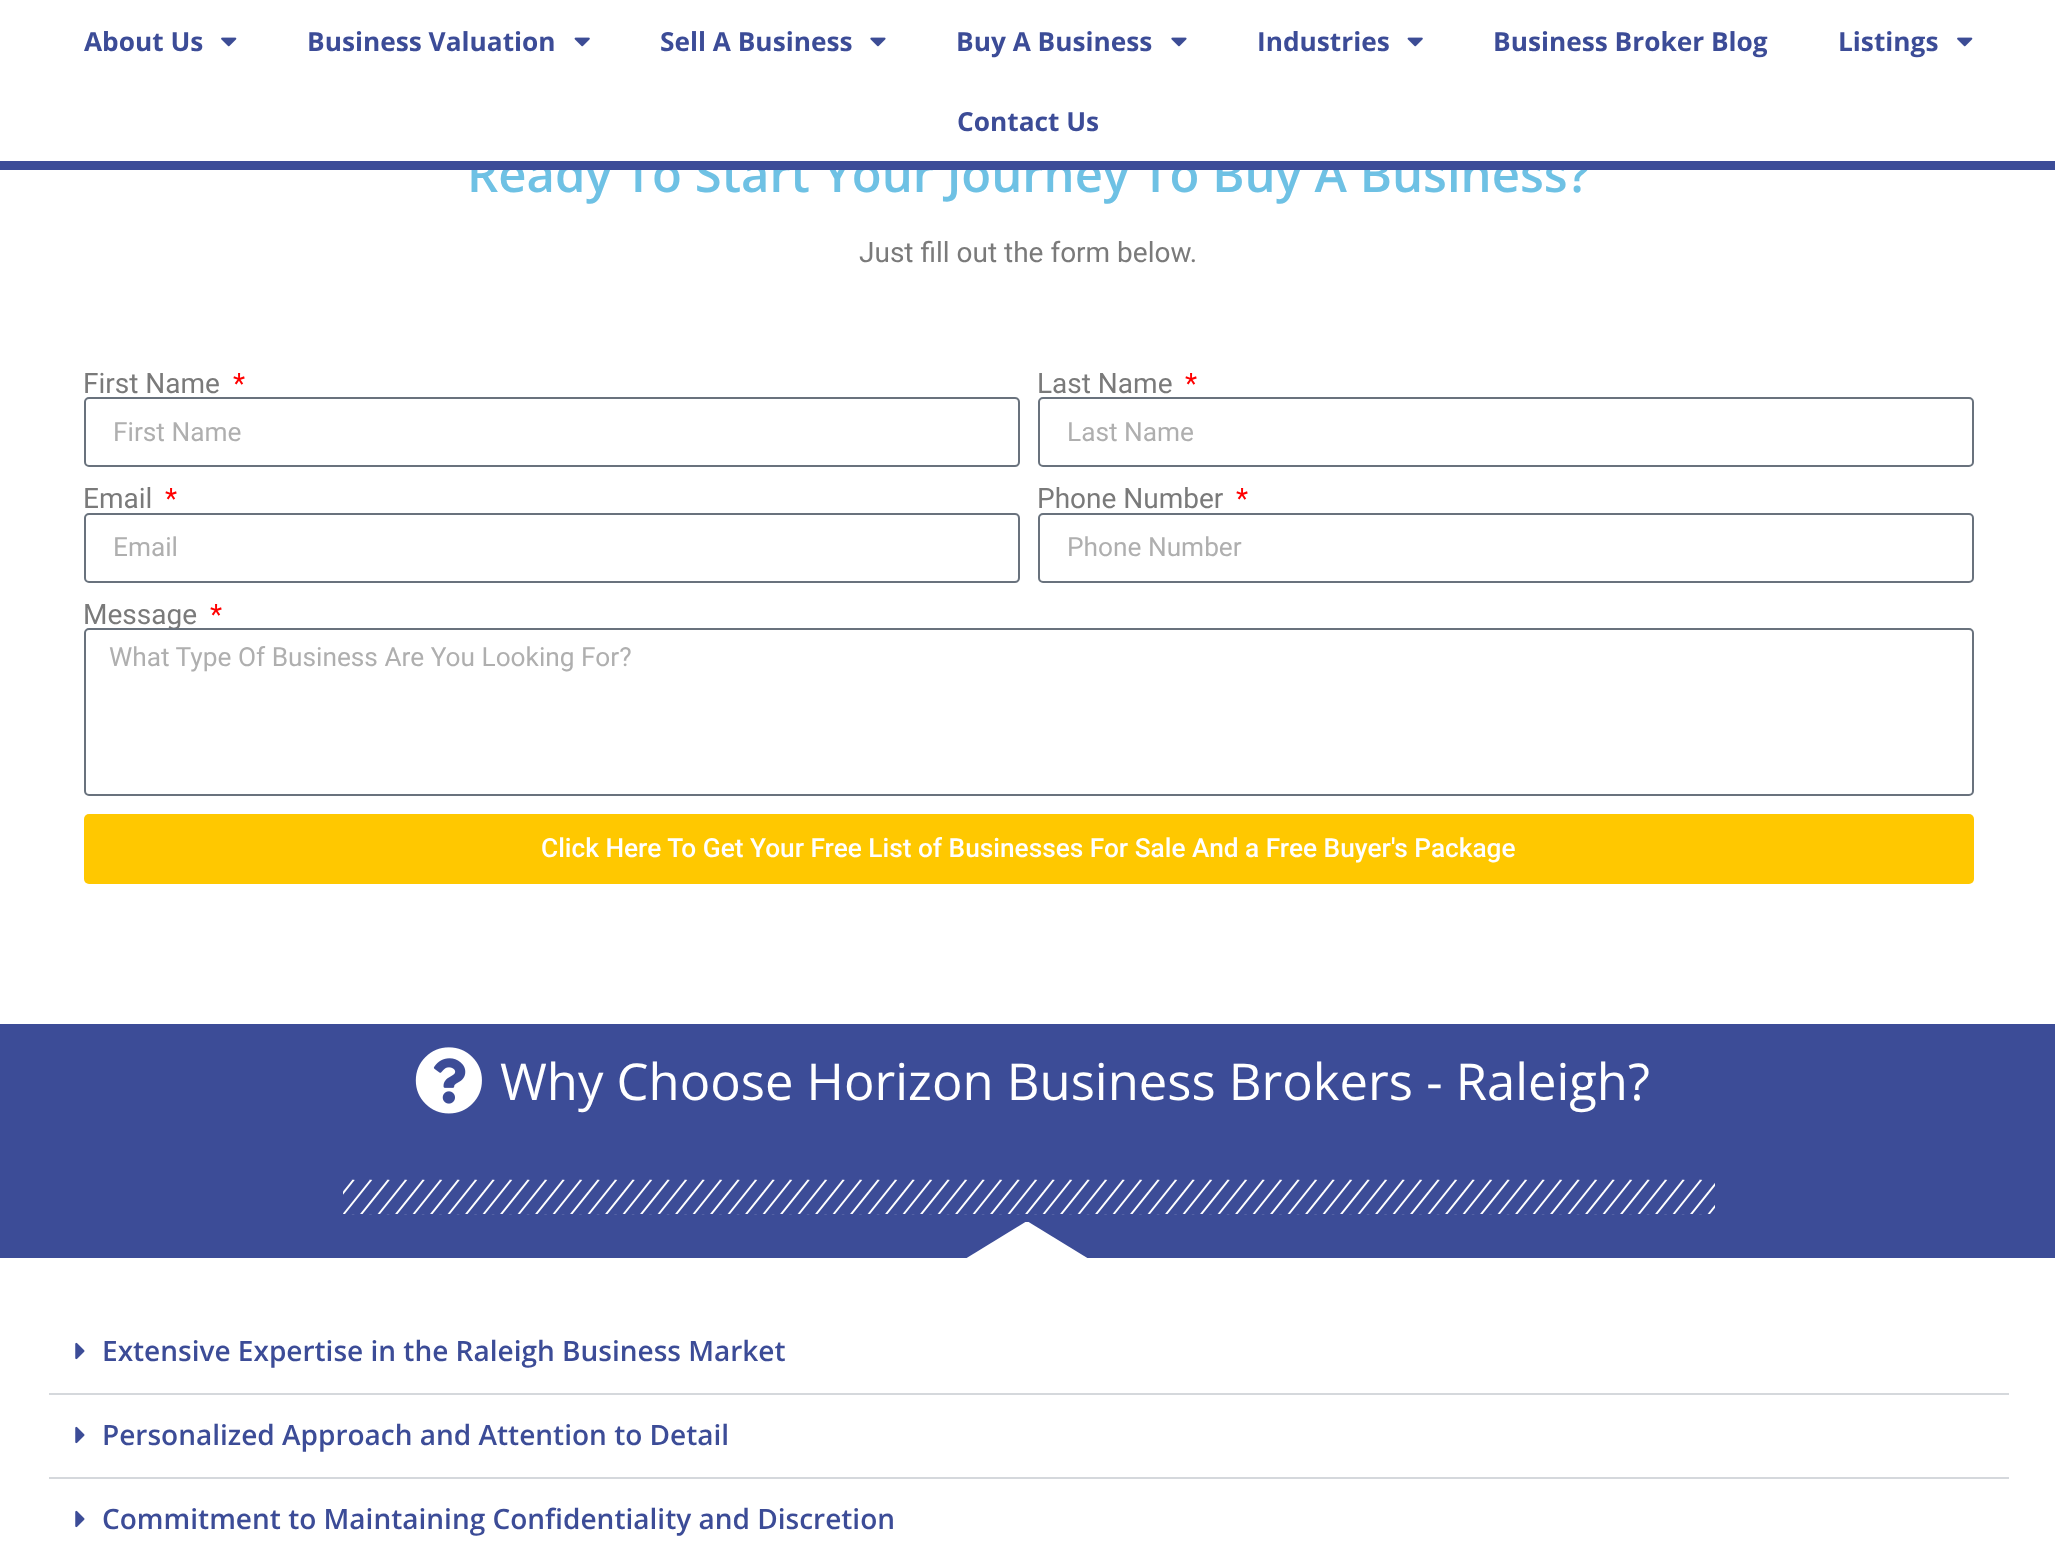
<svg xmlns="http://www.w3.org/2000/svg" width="2055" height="1547">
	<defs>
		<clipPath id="clip1"><rect x="0" y="1222" width="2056" height="38" /></clipPath>
	</defs>
	<rect width="100%" height="100%" fill="#FFFFFF" />
	<text x="467" y="192" font-family="Open Sans" font-size="49" font-weight="600" fill="#6EC1E4">Ready To Start Your Journey To Buy A Business?</text>
	<rect x="471" y="154" width="1117" height="7" fill="#FFFFFF" />
	<rect x="0" y="161" width="2055" height="9" fill="#3C4C98" />
	<text x="84" y="51" font-family="Open Sans" font-size="26.25" font-weight="700" fill="#3C4C97">About Us</text>
	<image x="221" y="37" width="16" height="10" href="assets/img1.png" />
	<text x="307" y="51" font-family="Open Sans" font-size="26.25" font-weight="700" fill="#3C4C97">Business Valuation</text>
	<image x="574" y="37" width="16" height="10" href="assets/img2.png" />
	<text x="660" y="51" font-family="Open Sans" font-size="26.25" font-weight="700" fill="#3C4C97">Sell A Business</text>
	<image x="870" y="37" width="16" height="10" href="assets/img3.png" />
	<text x="956" y="51" font-family="Open Sans" font-size="26.25" font-weight="700" fill="#3C4C97">Buy A Business</text>
	<image x="1171" y="37" width="16" height="10" href="assets/img3.png" />
	<text x="1257" y="51" font-family="Open Sans" font-size="26.25" font-weight="700" fill="#3C4C97">Industries</text>
	<image x="1407" y="37" width="16" height="10" href="assets/img2.png" />
	<g font-family="Open Sans" font-size="26.25" font-weight="700" fill="#3C4C97">
		<text x="1493" y="51">Business Broker Blog</text>
		<text x="1838" y="51">Listings</text>
	</g>
	<image x="1957" y="37" width="16" height="10" href="assets/img1.png" />
	<text x="957" y="131" font-family="Open Sans" font-size="26.25" font-weight="700" fill="#3C4C97">Contact Us</text>
	<g font-family="Roboto" font-size="28" fill="#7A7A7A">
		<text x="859" y="262">Just fill out the form below.</text>
		<text x="83" y="393">First Name</text>
	</g>
	<text x="233" y="393" font-family="Roboto" font-size="28" fill="#FF0000">*</text>
	<rect x="85" y="398" width="934" height="68" rx="4" fill="none" stroke="#69727D" stroke-width="2" />
	<text x="113" y="441" font-family="Roboto" font-size="26.25" fill="#AFAFAF">First Name</text>
	<text x="1037" y="393" font-family="Roboto" font-size="28" fill="#7A7A7A">Last Name</text>
	<text x="1185" y="393" font-family="Roboto" font-size="28" fill="#FF0000">*</text>
	<rect x="1039" y="398" width="934" height="68" rx="4" fill="none" stroke="#69727D" stroke-width="2" />
	<text x="1067" y="441" font-family="Roboto" font-size="26.25" fill="#AFAFAF">Last Name</text>
	<text x="83" y="508" font-family="Roboto" font-size="28" fill="#7A7A7A">Email</text>
	<text x="165" y="508" font-family="Roboto" font-size="28" fill="#FF0000">*</text>
	<rect x="85" y="514" width="934" height="68" rx="4" fill="none" stroke="#69727D" stroke-width="2" />
	<text x="113" y="556" font-family="Roboto" font-size="26.25" fill="#AFAFAF">Email</text>
	<text x="1037" y="508" font-family="Roboto" font-size="28" fill="#7A7A7A">Phone Number</text>
	<text x="1236" y="508" font-family="Roboto" font-size="28" fill="#FF0000">*</text>
	<rect x="1039" y="514" width="934" height="68" rx="4" fill="none" stroke="#69727D" stroke-width="2" />
	<text x="1067" y="556" font-family="Roboto" font-size="26.25" fill="#AFAFAF">Phone Number</text>
	<text x="83" y="624" font-family="Roboto" font-size="28" fill="#7A7A7A">Message</text>
	<text x="210" y="624" font-family="Roboto" font-size="28" fill="#FF0000">*</text>
	<rect x="85" y="629" width="1888" height="166" rx="4" fill="#FFFFFF" stroke="#69727D" stroke-width="2" />
	<text x="109" y="666" font-family="Roboto" font-size="26.25" fill="#AFAFAF">What Type Of Business Are You Looking For?</text>
	<rect x="84" y="814" width="1890" height="70" rx="5" fill="#FFC800" />
	<text x="541" y="857" font-family="Roboto" font-size="26.25" font-weight="500" fill="#FFFFFF">Click Here To Get Your Free List of Businesses For Sale And a Free Buyer's Package</text>
	<rect x="0" y="1024" width="2055" height="234" fill="#3C4C97" />
	<image x="415" y="1047" width="67" height="67" href="assets/img4.png" />
	<text x="500" y="1100" font-family="Open Sans" font-size="50.75" fill="#FFFFFF">Why Choose Horizon Business Brokers - Raleigh?</text>
	<image x="343" y="1179" width="1372" height="36" href="assets/img5.png" />
	<g clip-path="url(#clip1)">
		<path d="M1027 1221L1089 1259H965Z" fill="#FFFFFF" />
	</g>
	<rect x="49" y="1393" width="1960" height="2" fill="#D5D8DC" />
	<image x="75" y="1342" width="10" height="18" href="assets/img6.png" />
	<text x="102" y="1361" font-family="Open Sans" font-size="28" font-weight="600" fill="#3C4C97">Extensive Expertise in the Raleigh Business Market</text>
	<rect x="49" y="1477" width="1960" height="2" fill="#D5D8DC" />
	<image x="75" y="1426" width="10" height="18" href="assets/img6.png" />
	<text x="102" y="1445" font-family="Open Sans" font-size="28" font-weight="600" fill="#3C4C97">Personalized Approach and Attention to Detail</text>
	<image x="75" y="1510" width="10" height="18" href="assets/img6.png" />
	<text x="102" y="1529" font-family="Open Sans" font-size="28" font-weight="600" fill="#3C4C97">Commitment to Maintaining Confidentiality and Discretion</text>
</svg>
